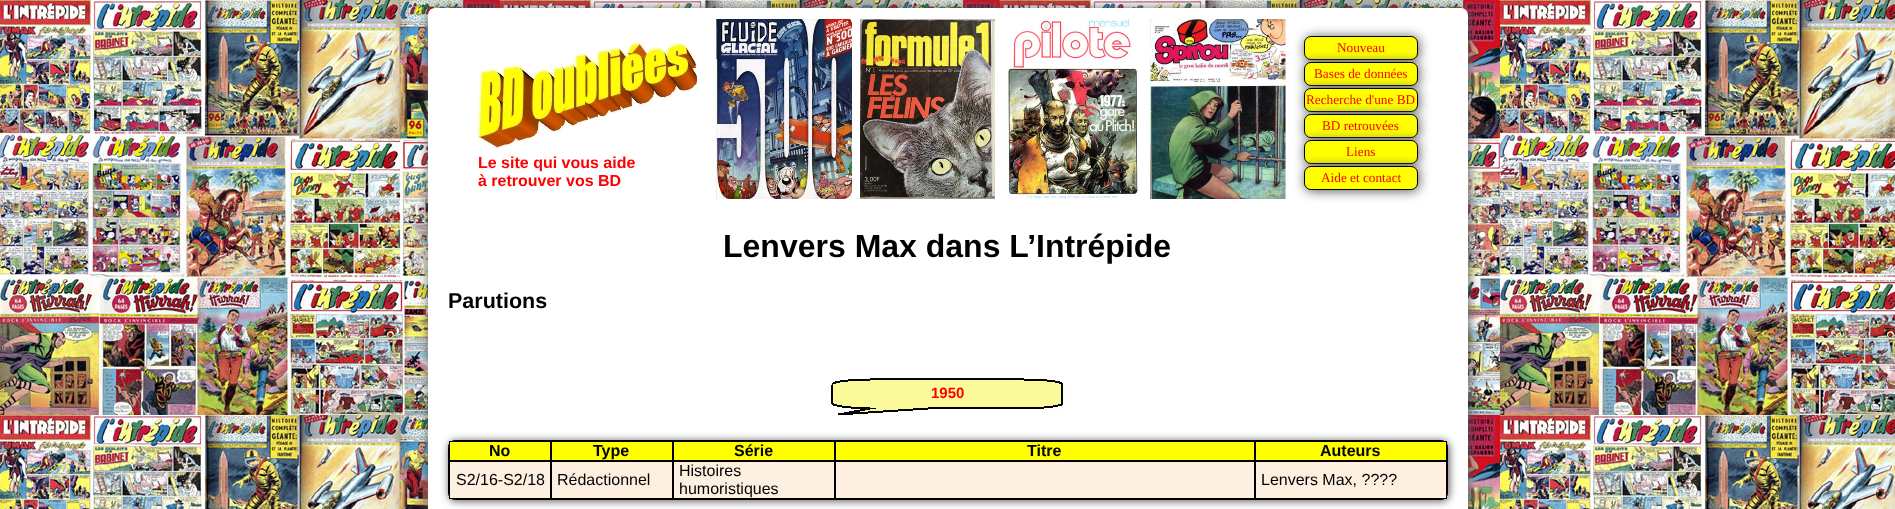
<svg xmlns="http://www.w3.org/2000/svg" width="1895" height="509">
	<rect width="100%" height="100%" fill="#FFFFFF" />
	<image x="0" y="0" width="1895" height="509" href="assets/img1.png" />
	<rect x="429" y="9" width="1040" height="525" rx="7" fill="#555555" filter="blur(6px)" />
	<rect x="428" y="8" width="1040" height="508" rx="7" fill="#FFFFFF" />
	<rect x="1305" y="37" width="114" height="24" rx="7" fill="#555555" filter="blur(6px)" />
	<rect x="1304.5" y="36.5" width="113" height="23" rx="6.5" fill="#FFFF00" stroke="#000000" />
	<rect x="1305" y="63" width="114" height="24" rx="7" fill="#555555" filter="blur(6px)" />
	<text x="1337" y="52" font-family="Liberation Serif" font-size="13.25" fill="#FF0000">Nouveau</text>
	<rect x="1304.5" y="62.5" width="113" height="23" rx="6.5" fill="#FFFF00" stroke="#000000" />
	<rect x="1305" y="89" width="114" height="24" rx="7" fill="#555555" filter="blur(6px)" />
	<text x="1314" y="78" font-family="Liberation Serif" font-size="13.25" fill="#FF0000">Bases de données</text>
	<rect x="1304.5" y="88.5" width="113" height="23" rx="6.5" fill="#FFFF00" stroke="#000000" />
	<rect x="1305" y="115" width="114" height="24" rx="7" fill="#555555" filter="blur(6px)" />
	<text x="1306" y="104" font-family="Liberation Serif" font-size="13.25" fill="#FF0000">Recherche d'une BD</text>
	<rect x="1304.5" y="114.5" width="113" height="23" rx="6.5" fill="#FFFF00" stroke="#000000" />
	<rect x="1305" y="141" width="114" height="24" rx="7" fill="#555555" filter="blur(6px)" />
	<text x="1322" y="130" font-family="Liberation Serif" font-size="13.25" fill="#FF0000">BD retrouvées</text>
	<rect x="1304.5" y="140.5" width="113" height="23" rx="6.5" fill="#FFFF00" stroke="#000000" />
	<rect x="1305" y="167" width="114" height="24" rx="7" fill="#555555" filter="blur(6px)" />
	<text x="1346" y="156" font-family="Liberation Serif" font-size="13.25" fill="#FF0000">Liens</text>
	<image x="478" y="42" width="219" height="107" href="assets/img2.png" />
	<g font-family="Liberation Sans" font-size="16" font-weight="700" fill="#FF0000">
		<text x="478" y="168">Le site qui vous aide</text>
		<text x="478" y="186">à retrouver vos BD</text>
	</g>
	<image x="716" y="19" width="570" height="180" href="assets/img3.png" />
	<rect x="1304.5" y="166.5" width="113" height="23" rx="6.5" fill="#FFFF00" stroke="#000000" />
	<text x="1321" y="182" font-family="Liberation Serif" font-size="13.25" fill="#FF0000">Aide et contact</text>
	<text x="723" y="257" font-family="Liberation Sans" font-size="32" font-weight="700" fill="#000000">Lenvers Max dans L’Intrépide</text>
	<text x="448" y="308" font-family="Liberation Sans" font-size="21.5" font-weight="700" fill="#000000">Parutions</text>
	<image x="827" y="373" width="242" height="42" href="assets/img4.png" />
	<text x="931" y="398" font-family="Liberation Sans" font-size="15" font-weight="700" fill="#FF0000">1950</text>
	<rect x="449" y="441" width="1000" height="60" rx="7" fill="#555555" filter="blur(4px)" />
	<rect x="448.5" y="440.5" width="999" height="59" rx="6.5" fill="none" stroke="#000000" />
	<rect x="449.5" y="441.5" width="101" height="19" fill="#FFFF00" stroke="#000000" />
	<text x="489" y="456" font-family="Liberation Sans" font-size="16" font-weight="700" fill="#000000">No</text>
	<rect x="551.5" y="441.5" width="121" height="19" fill="#FFFF00" stroke="#000000" />
	<text x="593" y="456" font-family="Liberation Sans" font-size="16" font-weight="700" fill="#000000">Type</text>
	<rect x="673.5" y="441.5" width="161" height="19" fill="#FFFF00" stroke="#000000" />
	<text x="734" y="456" font-family="Liberation Sans" font-size="16" font-weight="700" fill="#000000">Série</text>
	<rect x="835.5" y="441.5" width="419" height="19" fill="#FFFF00" stroke="#000000" />
	<text x="1027" y="456" font-family="Liberation Sans" font-size="16" font-weight="700" fill="#000000">Titre</text>
	<rect x="1255.5" y="441.5" width="191" height="19" fill="#FFFF00" stroke="#000000" />
	<text x="1320" y="456" font-family="Liberation Sans" font-size="16" font-weight="700" fill="#000000">Auteurs</text>
	<rect x="450" y="462" width="996" height="36" fill="#FEF0E0" />
	<rect x="449.5" y="461.5" width="101" height="37" fill="none" stroke="#000000" />
	<text x="456" y="485" font-family="Liberation Sans" font-size="16" fill="#000000">S2/16-S2/18</text>
	<rect x="551.5" y="461.5" width="121" height="37" fill="none" stroke="#000000" />
	<text x="557" y="485" font-family="Liberation Sans" font-size="16" fill="#000000">Rédactionnel</text>
	<rect x="673.5" y="461.5" width="161" height="37" fill="none" stroke="#000000" />
	<g font-family="Liberation Sans" font-size="16" fill="#000000">
		<text x="679" y="476">Histoires</text>
		<text x="679" y="494">humoristiques</text>
	</g>
	<rect x="835.5" y="461.5" width="419" height="37" fill="none" stroke="#000000" />
	<rect x="1255.5" y="461.5" width="191" height="37" fill="none" stroke="#000000" />
	<text x="1261" y="485" font-family="Liberation Sans" font-size="16" fill="#000000">Lenvers Max, ????</text>
</svg>
